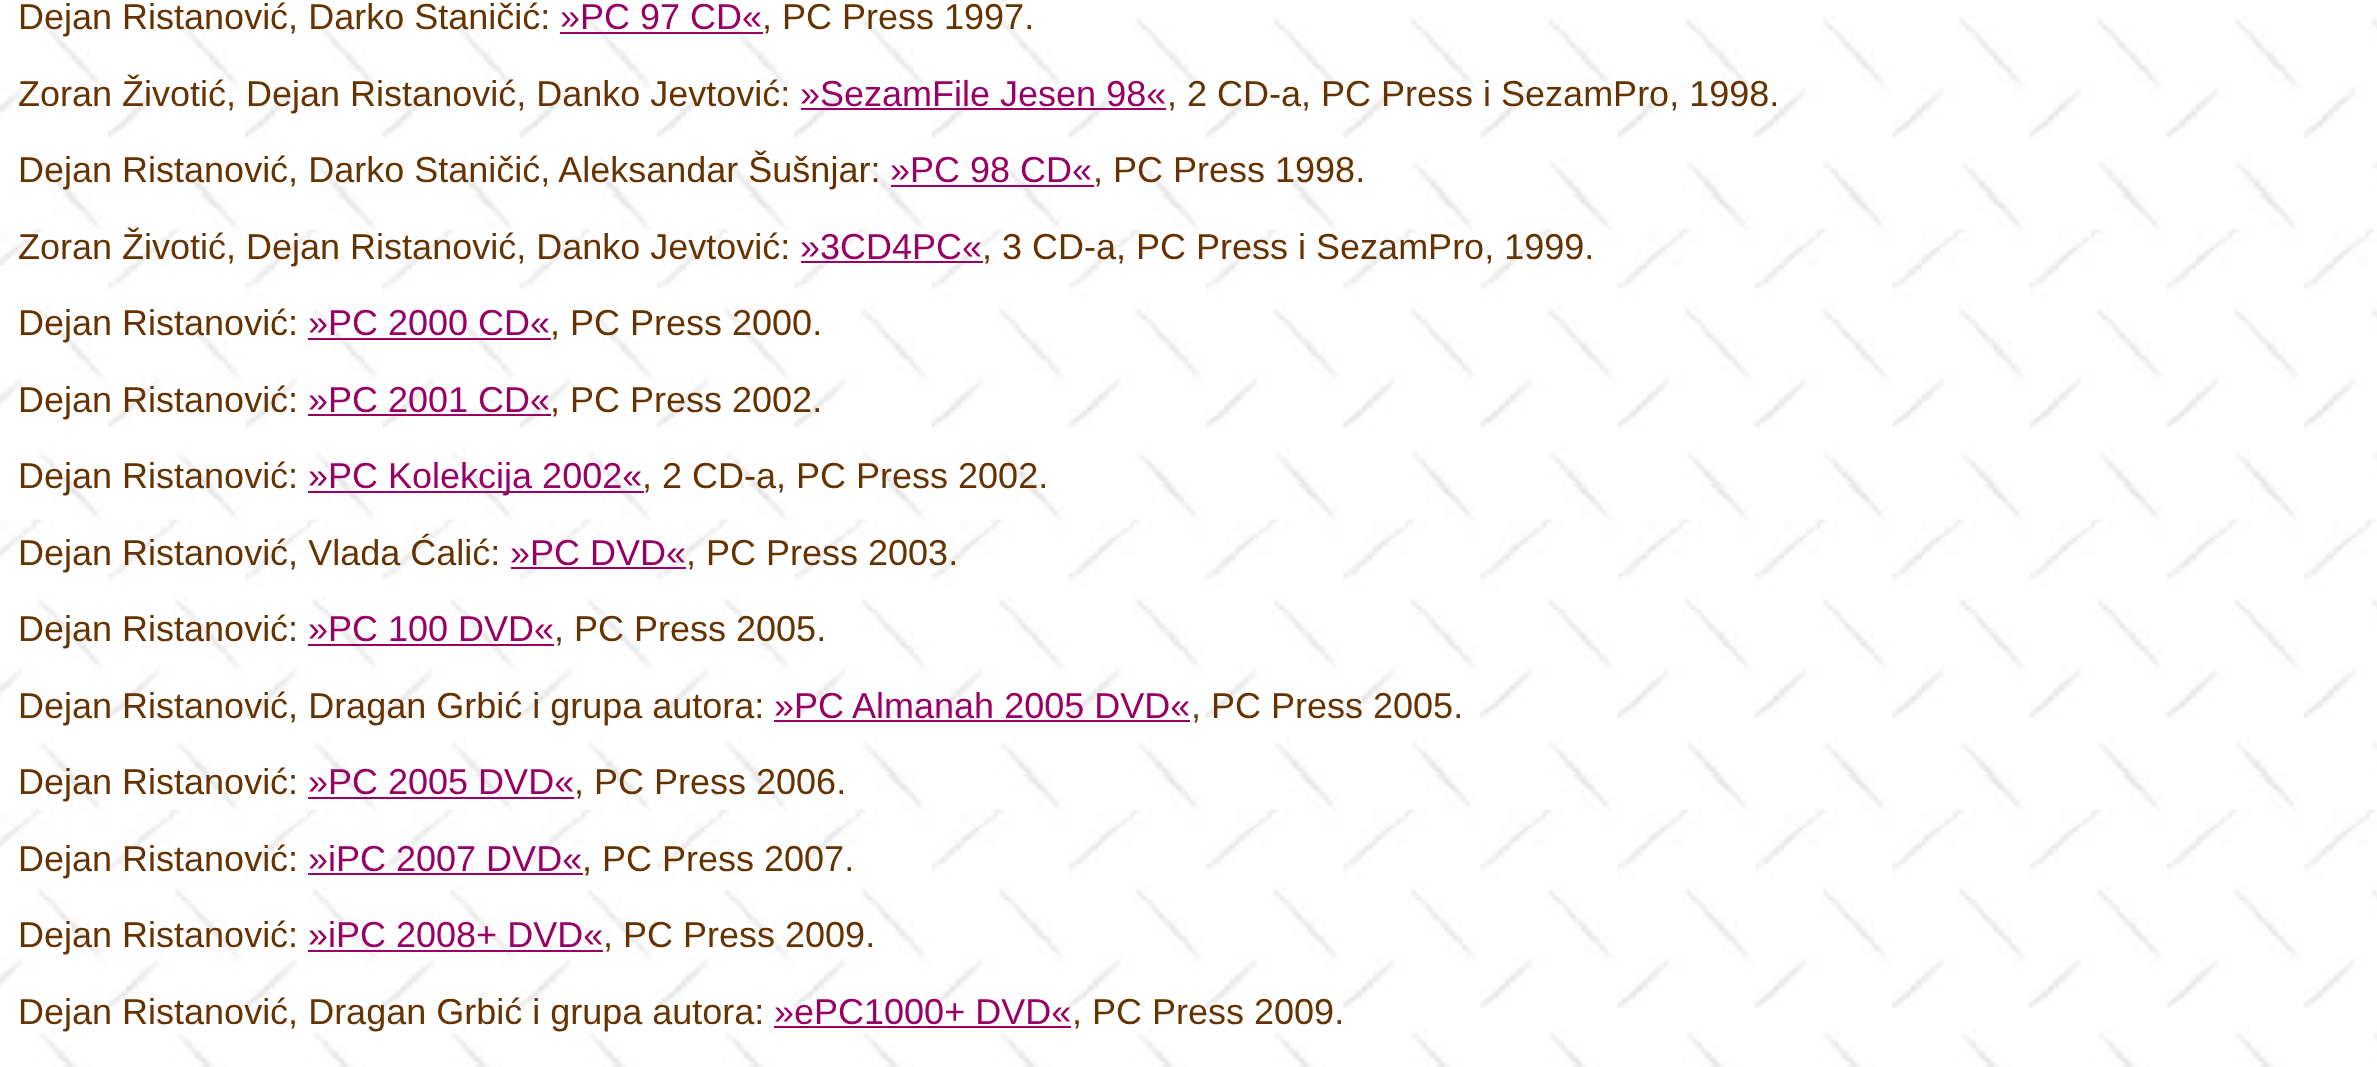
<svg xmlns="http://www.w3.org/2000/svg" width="2377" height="1067">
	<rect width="100%" height="100%" fill="#FFFFFF" />
	<image x="0" y="16" width="2377" height="1051" href="assets/img1.png" />
	<text x="18" y="29" font-family="Liberation Sans" font-size="36" fill="#663300">Dejan Ristanović, Darko Staničić:</text>
	<text x="560" y="29" font-family="Liberation Sans" font-size="36" fill="#990066">»PC 97 CD«</text>
	<rect x="560" y="32" width="203" height="2" fill="#990066" />
	<g font-family="Liberation Sans" font-size="36" fill="#663300">
		<text x="762" y="29">, PC Press 1997.</text>
		<text x="18" y="106">Zoran Životić, Dejan Ristanović, Danko Jevtović:</text>
	</g>
	<text x="800" y="106" font-family="Liberation Sans" font-size="36" fill="#990066">»SezamFile Jesen 98«</text>
	<rect x="801" y="108" width="365" height="2" fill="#990066" />
	<g font-family="Liberation Sans" font-size="36" fill="#663300">
		<text x="1167" y="106">, 2 CD-a, PC Press i SezamPro, 1998.</text>
		<text x="18" y="182">Dejan Ristanović, Darko Staničić, Aleksandar Šušnjar:</text>
	</g>
	<text x="890" y="182" font-family="Liberation Sans" font-size="36" fill="#990066">»PC 98 CD«</text>
	<rect x="891" y="185" width="203" height="2" fill="#990066" />
	<g font-family="Liberation Sans" font-size="36" fill="#663300">
		<text x="1093" y="182">, PC Press 1998.</text>
		<text x="18" y="259">Zoran Životić, Dejan Ristanović, Danko Jevtović:</text>
	</g>
	<text x="800" y="259" font-family="Liberation Sans" font-size="36" fill="#990066">»3CD4PC«</text>
	<rect x="801" y="261" width="182" height="2" fill="#990066" />
	<g font-family="Liberation Sans" font-size="36" fill="#663300">
		<text x="982" y="259">, 3 CD-a, PC Press i SezamPro, 1999.</text>
		<text x="18" y="335">Dejan Ristanović:</text>
	</g>
	<text x="308" y="335" font-family="Liberation Sans" font-size="36" fill="#990066">»PC 2000 CD«</text>
	<rect x="308" y="338" width="243" height="2" fill="#990066" />
	<g font-family="Liberation Sans" font-size="36" fill="#663300">
		<text x="550" y="335">, PC Press 2000.</text>
		<text x="18" y="412">Dejan Ristanović:</text>
	</g>
	<text x="308" y="412" font-family="Liberation Sans" font-size="36" fill="#990066">»PC 2001 CD«</text>
	<rect x="308" y="414" width="243" height="2" fill="#990066" />
	<g font-family="Liberation Sans" font-size="36" fill="#663300">
		<text x="550" y="412">, PC Press 2002.</text>
		<text x="18" y="488">Dejan Ristanović:</text>
	</g>
	<rect x="308" y="491" width="336" height="2" fill="#990066" />
	<text x="308" y="488" font-family="Liberation Sans" font-size="36" fill="#990066">»PC Kolekcija 2002«</text>
	<g font-family="Liberation Sans" font-size="36" fill="#663300">
		<text x="642" y="488">, 2 CD-a, PC Press 2002.</text>
		<text x="18" y="565">Dejan Ristanović, Vlada Ćalić:</text>
	</g>
	<text x="510" y="565" font-family="Liberation Sans" font-size="36" fill="#990066">»PC DVD«</text>
	<rect x="511" y="567" width="175" height="2" fill="#990066" />
	<g font-family="Liberation Sans" font-size="36" fill="#663300">
		<text x="686" y="565">, PC Press 2003.</text>
		<text x="18" y="641">Dejan Ristanović:</text>
	</g>
	<text x="308" y="641" font-family="Liberation Sans" font-size="36" fill="#990066">»PC 100 DVD«</text>
	<rect x="308" y="644" width="246" height="2" fill="#990066" />
	<g font-family="Liberation Sans" font-size="36" fill="#663300">
		<text x="554" y="641">, PC Press 2005.</text>
		<text x="18" y="718">Dejan Ristanović, Dragan Grbić i grupa autora:</text>
	</g>
	<text x="774" y="718" font-family="Liberation Sans" font-size="36" fill="#990066">»PC Almanah 2005 DVD«</text>
	<rect x="774" y="720" width="416" height="2" fill="#990066" />
	<g font-family="Liberation Sans" font-size="36" fill="#663300">
		<text x="1191" y="718">, PC Press 2005.</text>
		<text x="18" y="794">Dejan Ristanović:</text>
	</g>
	<text x="308" y="794" font-family="Liberation Sans" font-size="36" fill="#990066">»PC 2005 DVD«</text>
	<rect x="308" y="797" width="266" height="2" fill="#990066" />
	<g font-family="Liberation Sans" font-size="36" fill="#663300">
		<text x="574" y="794">, PC Press 2006.</text>
		<text x="18" y="871">Dejan Ristanović:</text>
	</g>
	<text x="308" y="871" font-family="Liberation Sans" font-size="36" fill="#990066">»iPC 2007 DVD«</text>
	<rect x="308" y="873" width="275" height="2" fill="#990066" />
	<g font-family="Liberation Sans" font-size="36" fill="#663300">
		<text x="582" y="871">, PC Press 2007.</text>
		<text x="18" y="947">Dejan Ristanović:</text>
	</g>
	<text x="308" y="947" font-family="Liberation Sans" font-size="36" fill="#990066">»iPC 2008+ DVD«</text>
	<rect x="308" y="950" width="295" height="2" fill="#990066" />
	<g font-family="Liberation Sans" font-size="36" fill="#663300">
		<text x="603" y="947">, PC Press 2009.</text>
		<text x="18" y="1024">Dejan Ristanović, Dragan Grbić i grupa autora:</text>
	</g>
	<text x="774" y="1024" font-family="Liberation Sans" font-size="36" fill="#990066">»ePC1000+ DVD«</text>
	<rect x="774" y="1026" width="297" height="2" fill="#990066" />
	<text x="1072" y="1024" font-family="Liberation Sans" font-size="36" fill="#663300">, PC Press 2009.</text>
</svg>
